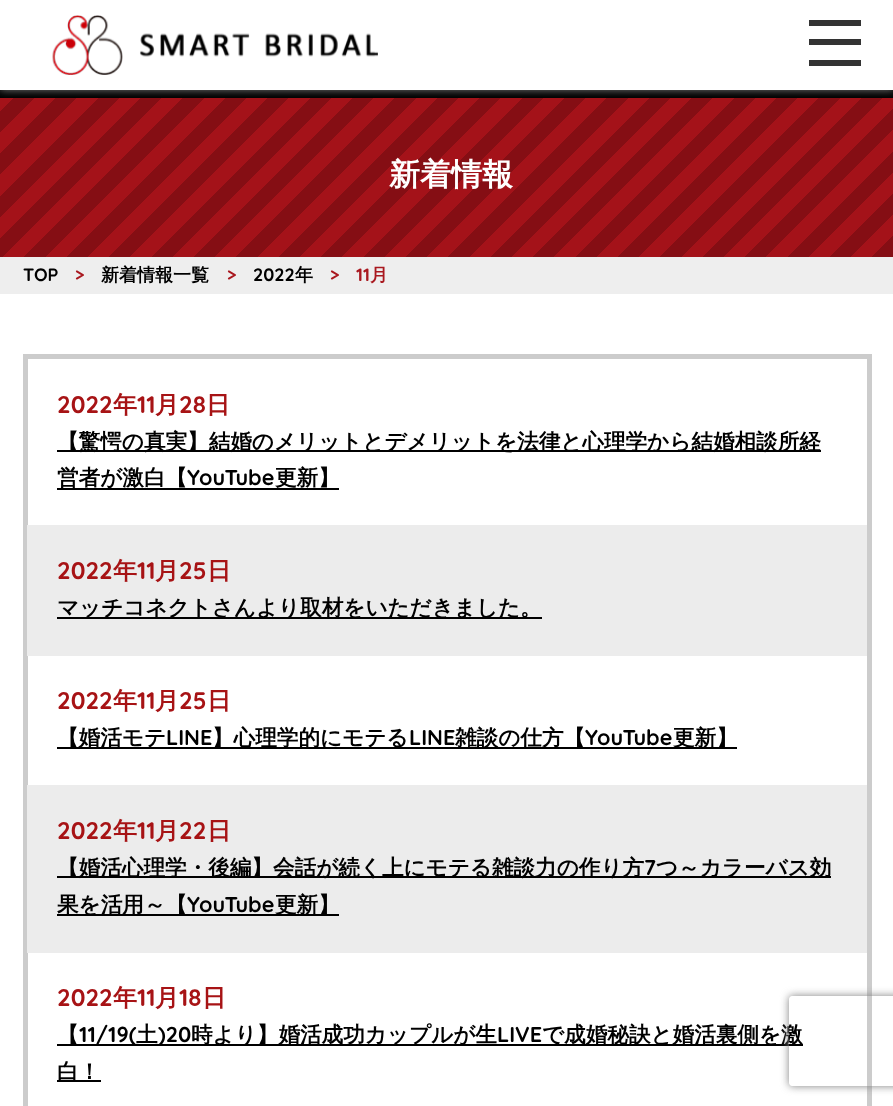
<svg xmlns="http://www.w3.org/2000/svg" width="893" height="1106">
	<defs>
		<linearGradient id="g1" gradientUnits="userSpaceOnUse" x1="710" y1="440" x2="180" y2="-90"><stop offset="0" stop-color="#850E14" /><stop offset="0.02" stop-color="#850E14" /><stop offset="0.02" stop-color="#A41219" /><stop offset="0.04" stop-color="#A41219" /><stop offset="0.04" stop-color="#850E14" /><stop offset="0.06" stop-color="#850E14" /><stop offset="0.06" stop-color="#A41219" /><stop offset="0.08" stop-color="#A41219" /><stop offset="0.08" stop-color="#850E14" /><stop offset="0.1" stop-color="#850E14" /><stop offset="0.1" stop-color="#A41219" /><stop offset="0.12" stop-color="#A41219" /><stop offset="0.12" stop-color="#850E14" /><stop offset="0.14" stop-color="#850E14" /><stop offset="0.14" stop-color="#A41219" /><stop offset="0.16" stop-color="#A41219" /><stop offset="0.16" stop-color="#850E14" /><stop offset="0.18" stop-color="#850E14" /><stop offset="0.18" stop-color="#A41219" /><stop offset="0.2" stop-color="#A41219" /><stop offset="0.2" stop-color="#850E14" /><stop offset="0.22" stop-color="#850E14" /><stop offset="0.22" stop-color="#A41219" /><stop offset="0.24" stop-color="#A41219" /><stop offset="0.24" stop-color="#850E14" /><stop offset="0.26" stop-color="#850E14" /><stop offset="0.26" stop-color="#A41219" /><stop offset="0.28" stop-color="#A41219" /><stop offset="0.28" stop-color="#850E14" /><stop offset="0.3" stop-color="#850E14" /><stop offset="0.3" stop-color="#A41219" /><stop offset="0.32" stop-color="#A41219" /><stop offset="0.32" stop-color="#850E14" /><stop offset="0.34" stop-color="#850E14" /><stop offset="0.34" stop-color="#A41219" /><stop offset="0.36" stop-color="#A41219" /><stop offset="0.36" stop-color="#850E14" /><stop offset="0.38" stop-color="#850E14" /><stop offset="0.38" stop-color="#A41219" /><stop offset="0.4" stop-color="#A41219" /><stop offset="0.4" stop-color="#850E14" /><stop offset="0.42" stop-color="#850E14" /><stop offset="0.42" stop-color="#A41219" /><stop offset="0.44" stop-color="#A41219" /><stop offset="0.44" stop-color="#850E14" /><stop offset="0.46" stop-color="#850E14" /><stop offset="0.46" stop-color="#A41219" /><stop offset="0.48" stop-color="#A41219" /><stop offset="0.48" stop-color="#850E14" /><stop offset="0.5" stop-color="#850E14" /><stop offset="0.5" stop-color="#A41219" /><stop offset="0.52" stop-color="#A41219" /><stop offset="0.52" stop-color="#850E14" /><stop offset="0.54" stop-color="#850E14" /><stop offset="0.54" stop-color="#A41219" /><stop offset="0.56" stop-color="#A41219" /><stop offset="0.56" stop-color="#850E14" /><stop offset="0.58" stop-color="#850E14" /><stop offset="0.58" stop-color="#A41219" /><stop offset="0.6" stop-color="#A41219" /><stop offset="0.6" stop-color="#850E14" /><stop offset="0.62" stop-color="#850E14" /><stop offset="0.62" stop-color="#A41219" /><stop offset="0.64" stop-color="#A41219" /><stop offset="0.64" stop-color="#850E14" /><stop offset="0.66" stop-color="#850E14" /><stop offset="0.66" stop-color="#A41219" /><stop offset="0.68" stop-color="#A41219" /><stop offset="0.68" stop-color="#850E14" /><stop offset="0.7" stop-color="#850E14" /><stop offset="0.7" stop-color="#A41219" /><stop offset="0.72" stop-color="#A41219" /><stop offset="0.72" stop-color="#850E14" /><stop offset="0.74" stop-color="#850E14" /><stop offset="0.74" stop-color="#A41219" /><stop offset="0.76" stop-color="#A41219" /><stop offset="0.76" stop-color="#850E14" /><stop offset="0.78" stop-color="#850E14" /><stop offset="0.78" stop-color="#A41219" /><stop offset="0.8" stop-color="#A41219" /><stop offset="0.8" stop-color="#850E14" /><stop offset="0.82" stop-color="#850E14" /><stop offset="0.82" stop-color="#A41219" /><stop offset="0.84" stop-color="#A41219" /><stop offset="0.84" stop-color="#850E14" /><stop offset="0.86" stop-color="#850E14" /><stop offset="0.86" stop-color="#A41219" /><stop offset="0.88" stop-color="#A41219" /><stop offset="0.88" stop-color="#850E14" /><stop offset="0.9" stop-color="#850E14" /><stop offset="0.9" stop-color="#A41219" /><stop offset="0.92" stop-color="#A41219" /><stop offset="0.92" stop-color="#850E14" /><stop offset="0.94" stop-color="#850E14" /><stop offset="0.94" stop-color="#A41219" /><stop offset="0.96" stop-color="#A41219" /><stop offset="0.96" stop-color="#850E14" /><stop offset="0.98" stop-color="#850E14" /><stop offset="0.98" stop-color="#A41219" /><stop offset="1" stop-color="#A41219" /></linearGradient>
		<clipPath id="clip1"><rect x="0" y="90" width="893" height="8" /></clipPath>
		<clipPath id="clip2"><path d="M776 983H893V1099H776ZM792 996H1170C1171.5 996 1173 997.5 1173 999V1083C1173 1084.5 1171.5 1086 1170 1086H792C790.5 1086 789 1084.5 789 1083V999C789 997.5 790.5 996 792 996Z" clip-rule="evenodd" /></clipPath>
	</defs>
	<rect width="100%" height="100%" fill="#FFFFFF" />
	<rect x="0" y="90" width="893" height="8" fill="#000000" />
	<rect x="0" y="98" width="893" height="159" fill="url(#g1)" />
	<g clip-path="url(#clip1)">
		<rect x="0" y="0" width="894" height="90" fill="#7B7B7B" filter="blur(4px)" />
	</g>
	<image x="52" y="15" width="326" height="60" href="assets/img1.png" />
	<rect x="809" y="20" width="52" height="6" fill="#333333" />
	<rect x="809" y="39" width="52" height="6" fill="#333333" />
	<rect x="809" y="60" width="52" height="6" fill="#333333" />
	<text x="389" y="185" font-family="WenQuanYi Zen Hei" font-size="31" font-weight="700" fill="#FFFFFF">新着情報</text>
	<rect x="0" y="257" width="893" height="37" fill="#EEEEEE" />
	<text x="23" y="281" font-family="Quicksand" font-size="18" font-weight="700" fill="#000000">TOP</text>
	<text x="75" y="281" font-family="Quicksand" font-size="18" font-weight="700" fill="#A9181F">&gt;</text>
	<text x="101" y="281" font-family="WenQuanYi Zen Hei" font-size="18" font-weight="700" fill="#000000">新着情報一覧</text>
	<text x="227" y="281" font-family="Quicksand" font-size="18" font-weight="700" fill="#A9181F">&gt;</text>
	<text x="253" y="281" font-family="Quicksand" font-size="18" font-weight="700" fill="#000000">2022</text>
	<text x="295" y="281" font-family="WenQuanYi Zen Hei" font-size="18" font-weight="700" fill="#000000">年</text>
	<g font-family="Quicksand" font-size="18" font-weight="700" fill="#A9181F">
		<text x="330" y="281">&gt;</text>
		<text x="356" y="281">11</text>
	</g>
	<text x="370" y="281" font-family="WenQuanYi Zen Hei" font-size="18" font-weight="700" fill="#A9181F">月</text>
	<rect x="25.5" y="356.5" width="844" height="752" fill="none" stroke="#CCCCCC" stroke-width="5" />
	<text x="57" y="413" font-family="Quicksand" font-size="24" font-weight="700" fill="#A71315">2022</text>
	<text x="113" y="413" font-family="WenQuanYi Zen Hei" font-size="24" font-weight="700" fill="#A71315">年</text>
	<text x="137" y="413" font-family="Quicksand" font-size="24" font-weight="700" fill="#A71315">11</text>
	<text x="155" y="413" font-family="WenQuanYi Zen Hei" font-size="24" font-weight="700" fill="#A71315">月</text>
	<text x="179" y="413" font-family="Quicksand" font-size="24" font-weight="700" fill="#A71315">28</text>
	<text x="206" y="413" font-family="WenQuanYi Zen Hei" font-size="24" font-weight="700" fill="#A71315">日</text>
	<rect x="57" y="450" width="764" height="2" fill="#000000" />
	<text x="57" y="449" font-family="WenQuanYi Zen Hei" font-size="21.6" font-weight="700" fill="#000000">【驚愕の真実】結婚のメリットとデメリットを法律と心理学から結婚相談所経</text>
	<rect x="57" y="488" width="282" height="2" fill="#000000" />
	<text x="57" y="485" font-family="WenQuanYi Zen Hei" font-size="21.6" font-weight="700" fill="#000000">営者が激白【</text>
	<text x="187" y="485" font-family="Quicksand" font-size="21.6" font-weight="700" fill="#000000">YouTube</text>
	<text x="275" y="485" font-family="WenQuanYi Zen Hei" font-size="21.6" font-weight="700" fill="#000000">更新】</text>
	<rect x="27" y="525" width="840" height="131" fill="#ECECEC" />
	<text x="57" y="579" font-family="Quicksand" font-size="24" font-weight="700" fill="#A71315">2022</text>
	<text x="113" y="579" font-family="WenQuanYi Zen Hei" font-size="24" font-weight="700" fill="#A71315">年</text>
	<text x="137" y="579" font-family="Quicksand" font-size="24" font-weight="700" fill="#A71315">11</text>
	<text x="155" y="579" font-family="WenQuanYi Zen Hei" font-size="24" font-weight="700" fill="#A71315">月</text>
	<text x="179" y="579" font-family="Quicksand" font-size="24" font-weight="700" fill="#A71315">25</text>
	<text x="207" y="579" font-family="WenQuanYi Zen Hei" font-size="24" font-weight="700" fill="#A71315">日</text>
	<rect x="57" y="617" width="485" height="2" fill="#000000" />
	<text x="57" y="615" font-family="WenQuanYi Zen Hei" font-size="21.6" font-weight="700" fill="#000000">マッチコネクトさんより取材をいただきました。</text>
	<text x="57" y="709" font-family="Quicksand" font-size="24" font-weight="700" fill="#A71315">2022</text>
	<text x="113" y="709" font-family="WenQuanYi Zen Hei" font-size="24" font-weight="700" fill="#A71315">年</text>
	<text x="137" y="709" font-family="Quicksand" font-size="24" font-weight="700" fill="#A71315">11</text>
	<text x="155" y="709" font-family="WenQuanYi Zen Hei" font-size="24" font-weight="700" fill="#A71315">月</text>
	<text x="179" y="709" font-family="Quicksand" font-size="24" font-weight="700" fill="#A71315">25</text>
	<text x="207" y="709" font-family="WenQuanYi Zen Hei" font-size="24" font-weight="700" fill="#A71315">日</text>
	<rect x="57" y="747" width="680" height="2" fill="#000000" />
	<text x="57" y="745" font-family="WenQuanYi Zen Hei" font-size="21.6" font-weight="700" fill="#000000">【婚活モテ</text>
	<text x="166" y="745" font-family="Quicksand" font-size="21.6" font-weight="700" fill="#000000">LINE</text>
	<text x="212" y="745" font-family="WenQuanYi Zen Hei" font-size="21.6" font-weight="700" fill="#000000">】心理学的にモテる</text>
	<text x="409" y="745" font-family="Quicksand" font-size="21.6" font-weight="700" fill="#000000">LINE</text>
	<text x="455" y="745" font-family="WenQuanYi Zen Hei" font-size="21.6" font-weight="700" fill="#000000">雑談の仕方【</text>
	<text x="585" y="745" font-family="Quicksand" font-size="21.6" font-weight="700" fill="#000000">YouTube</text>
	<text x="673" y="745" font-family="WenQuanYi Zen Hei" font-size="21.6" font-weight="700" fill="#000000">更新】</text>
	<rect x="27" y="785" width="840" height="168" fill="#ECECEC" />
	<text x="57" y="839" font-family="Quicksand" font-size="24" font-weight="700" fill="#A71315">2022</text>
	<text x="113" y="839" font-family="WenQuanYi Zen Hei" font-size="24" font-weight="700" fill="#A71315">年</text>
	<text x="137" y="839" font-family="Quicksand" font-size="24" font-weight="700" fill="#A71315">11</text>
	<text x="155" y="839" font-family="WenQuanYi Zen Hei" font-size="24" font-weight="700" fill="#A71315">月</text>
	<text x="179" y="839" font-family="Quicksand" font-size="24" font-weight="700" fill="#A71315">22</text>
	<text x="207" y="839" font-family="WenQuanYi Zen Hei" font-size="24" font-weight="700" fill="#A71315">日</text>
	<rect x="57" y="876" width="774" height="2" fill="#000000" />
	<text x="57" y="875" font-family="WenQuanYi Zen Hei" font-size="21.6" font-weight="700" fill="#000000">【婚活心理学・後編】会話が続く上にモテる雑談力の作り方</text>
	<text x="644" y="875" font-family="Quicksand" font-size="21.6" font-weight="700" fill="#000000">7</text>
	<text x="656" y="875" font-family="WenQuanYi Zen Hei" font-size="21.6" font-weight="700" fill="#000000">つ～カラーバス効</text>
	<rect x="57" y="914" width="282" height="2" fill="#000000" />
	<text x="57" y="912" font-family="WenQuanYi Zen Hei" font-size="21.6" font-weight="700" fill="#000000">果を活用～【</text>
	<text x="187" y="912" font-family="Quicksand" font-size="21.6" font-weight="700" fill="#000000">YouTube</text>
	<text x="275" y="912" font-family="WenQuanYi Zen Hei" font-size="21.6" font-weight="700" fill="#000000">更新】</text>
	<text x="57" y="1006" font-family="Quicksand" font-size="24" font-weight="700" fill="#A71315">2022</text>
	<text x="113" y="1006" font-family="WenQuanYi Zen Hei" font-size="24" font-weight="700" fill="#A71315">年</text>
	<text x="137" y="1006" font-family="Quicksand" font-size="24" font-weight="700" fill="#A71315">11</text>
	<text x="155" y="1006" font-family="WenQuanYi Zen Hei" font-size="24" font-weight="700" fill="#A71315">月</text>
	<text x="179" y="1006" font-family="Quicksand" font-size="24" font-weight="700" fill="#A71315">18</text>
	<text x="202" y="1006" font-family="WenQuanYi Zen Hei" font-size="24" font-weight="700" fill="#A71315">日</text>
	<rect x="57" y="1044" width="746" height="2" fill="#000000" />
	<text x="57" y="1042" font-family="WenQuanYi Zen Hei" font-size="21.6" font-weight="700" fill="#000000">【</text>
	<text x="79" y="1042" font-family="Quicksand" font-size="21.6" font-weight="700" fill="#000000">11/19(</text>
	<text x="136" y="1042" font-family="WenQuanYi Zen Hei" font-size="21.6" font-weight="700" fill="#000000">土</text>
	<text x="158" y="1042" font-family="Quicksand" font-size="21.6" font-weight="700" fill="#000000">)20</text>
	<text x="191" y="1042" font-family="WenQuanYi Zen Hei" font-size="21.6" font-weight="700" fill="#000000">時より】婚活成功カップルが生</text>
	<text x="497" y="1042" font-family="Quicksand" font-size="21.6" font-weight="700" fill="#000000">LIVE</text>
	<text x="542" y="1042" font-family="WenQuanYi Zen Hei" font-size="21.6" font-weight="700" fill="#000000">で成婚秘訣と婚活裏側を激</text>
	<rect x="57" y="1080" width="44" height="2" fill="#000000" />
	<text x="57" y="1079" font-family="WenQuanYi Zen Hei" font-size="21.6" font-weight="700" fill="#000000">白！</text>
	<g clip-path="url(#clip2)">
		<rect x="789" y="996" width="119" height="90" rx="3" fill="#808080" filter="blur(4px)" />
	</g>
</svg>
